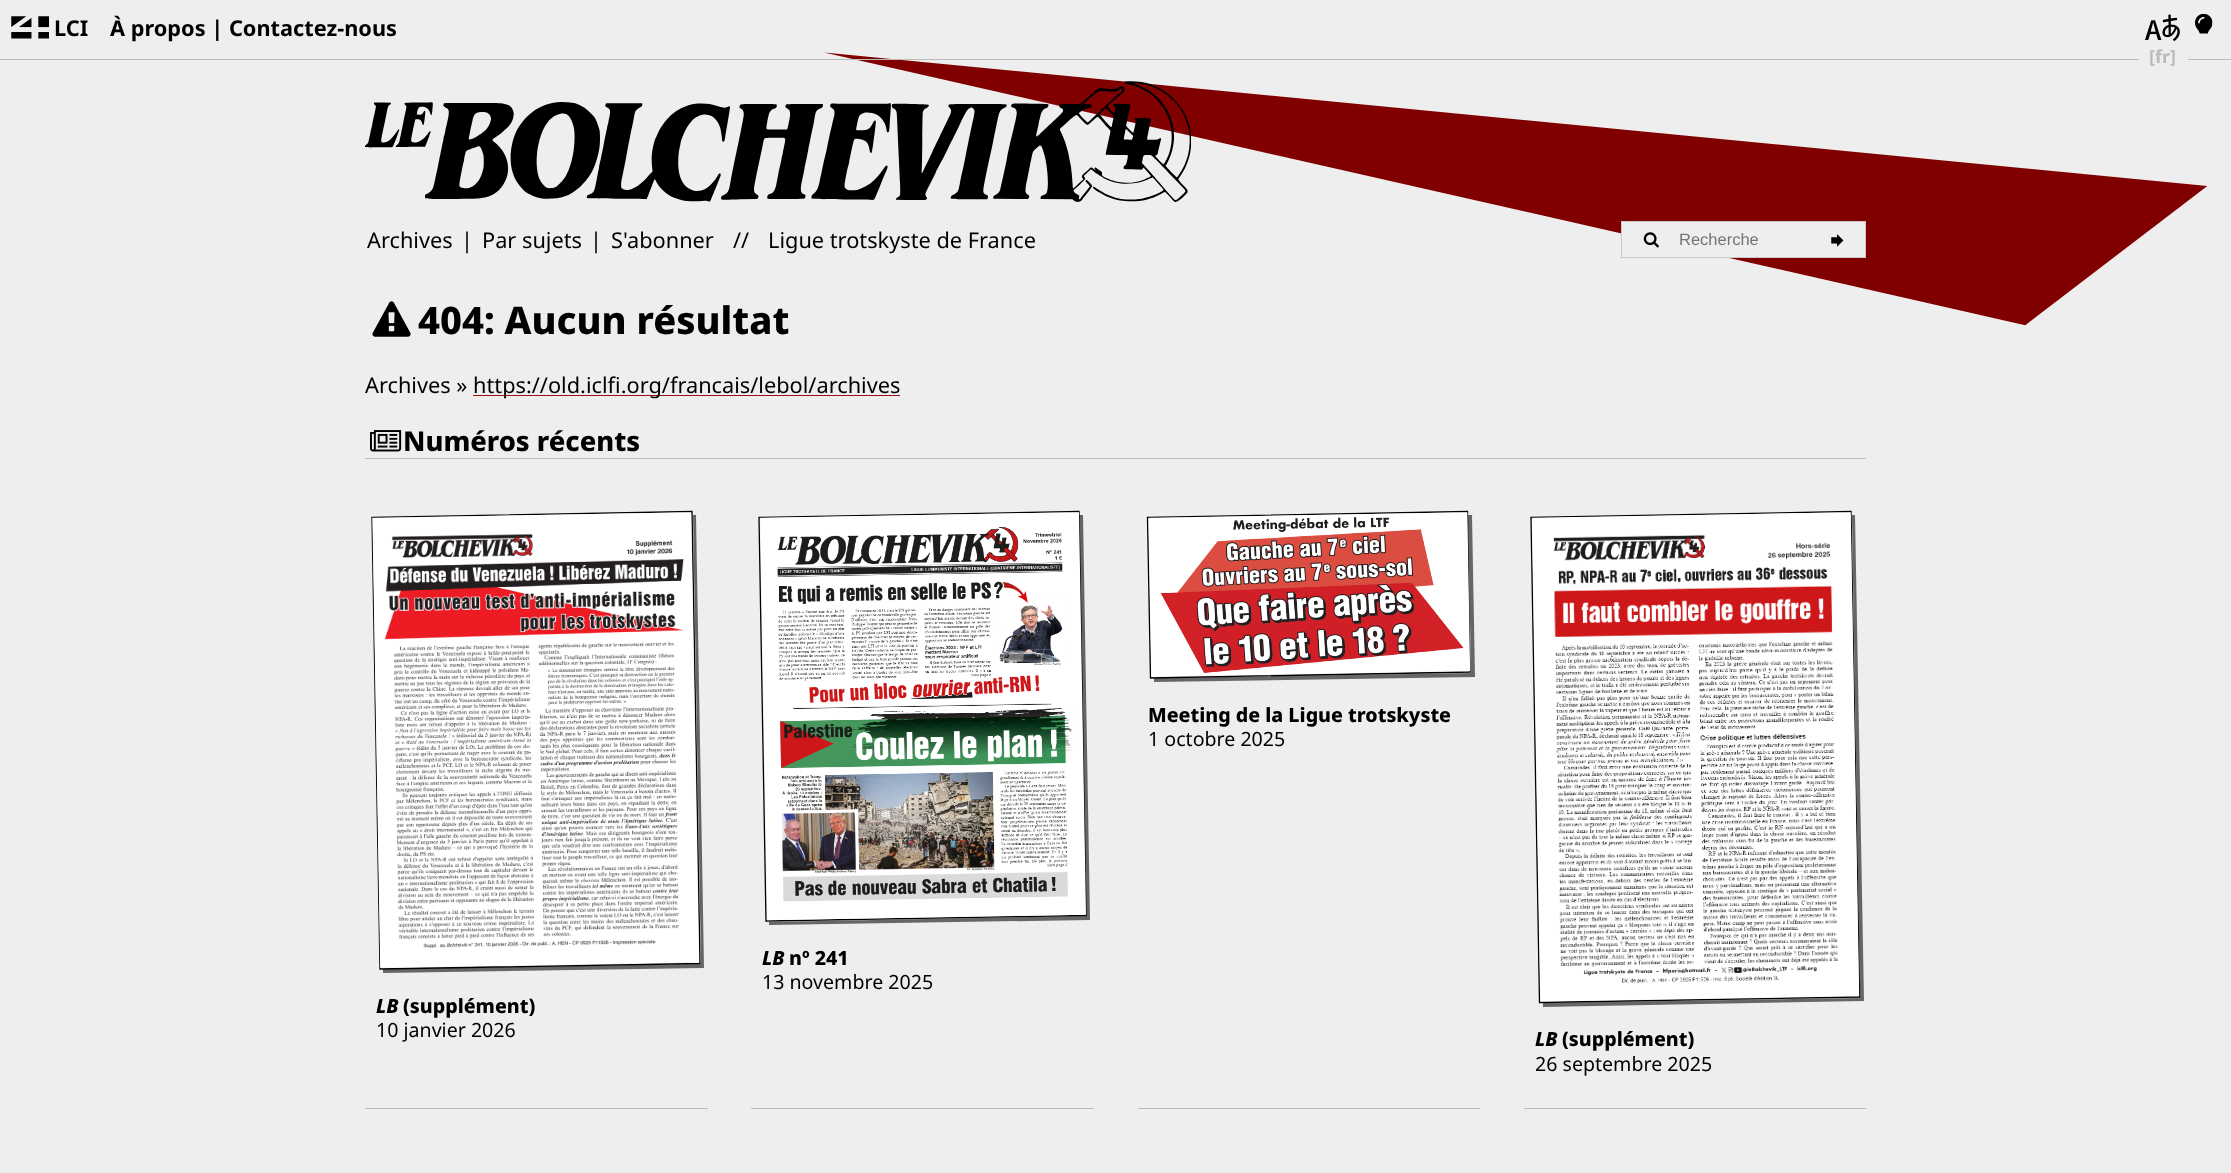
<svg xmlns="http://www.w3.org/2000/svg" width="2231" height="1173">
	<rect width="100%" height="100%" fill="#EEEEEE" />
	<image x="824" y="52" width="1384" height="274" href="assets/img1.png" />
	<rect x="0" y="59" width="2231" height="1" fill="#BBBBBB" />
	<image x="11" y="16" width="38" height="23" href="assets/img2.png" />
	<g font-family="Noto Sans" font-size="21.75" font-weight="700" fill="#000000">
		<text x="54" y="36">LCI</text>
		<text x="110" y="36">À propos | Contactez-nous</text>
	</g>
	<image x="2195" y="14" width="18" height="20" href="assets/img3.png" />
	<image x="2145" y="14" width="35" height="27" href="assets/img4.png" />
	<rect x="2139" y="59" width="49" height="1" fill="#EEEEEE" />
	<text x="2149" y="63" font-family="Noto Sans" font-size="18" font-weight="700" fill="#BBBBBB">[fr]</text>
	<image x="365" y="81" width="826" height="121" href="assets/img5.png" />
	<g font-family="Noto Sans" font-size="21.75" fill="#000000">
		<text x="367" y="248">Archives</text>
		<text x="461" y="248">|</text>
		<text x="482" y="248">Par sujets</text>
		<text x="590" y="248">|</text>
		<text x="611" y="248">S'abonner</text>
		<text x="733" y="248">//</text>
		<text x="768" y="248">Ligue trotskyste de France</text>
	</g>
	<rect x="1621.5" y="221.5" width="244" height="36" fill="#EEEEEE" stroke="#C8C8C8" />
	<image x="1643" y="232" width="16" height="16" href="assets/img6.png" />
	<text x="1679" y="245" font-family="Liberation Sans" font-size="16.5" fill="#757575">Recherche</text>
	<image x="1831" y="234" width="13" height="13" href="assets/img7.png" />
	<image x="372" y="301" width="39" height="36" href="assets/img8.png" />
	<text x="418" y="334" font-family="Noto Sans" font-size="38" font-weight="800" fill="#000000">404: Aucun résultat</text>
	<text x="365" y="393" font-family="Noto Sans" font-size="21.75" fill="#000000">Archives »</text>
	<rect x="473" y="395" width="427" height="1" fill="#991111" />
	<text x="473" y="393" font-family="Noto Sans" font-size="21.75" fill="#000000">https://old.iclfi.org/francais/lebol/archives</text>
	<rect x="365" y="458" width="1501" height="1" fill="#BBBBBB" />
	<image x="370" y="430" width="32" height="22" href="assets/img9.png" />
	<text x="403" y="451" font-family="Noto Sans" font-size="27.25" font-weight="800" fill="#000000">Numéros récents</text>
	<rect x="1138" y="1108" width="342" height="1" fill="#BBBBBB" />
	<path d="M1154 678V682L1475 677L1472 515H1468L1471 673Z" fill="#666666" />
	<path d="M1147.5 517.5L1467.5 511.5L1470 672L1150.5 678Z" fill="none" stroke="#000000" stroke-width="1.3" />
	<image x="1148" y="512" width="323" height="165" href="assets/img10.png" />
	<text x="1148" y="722" font-family="Noto Sans" font-size="19.6" font-weight="800" fill="#000000">Meeting de la Ligue trotskyste</text>
	<text x="1148" y="746" font-family="Noto Sans" font-size="19.6" fill="#000000">1 octobre 2025</text>
	<rect x="751" y="1108" width="343" height="1" fill="#BBBBBB" />
	<path d="M769 922V925L1090 920L1083 515H1079L1086 916Z" fill="#666666" />
	<path d="M759 517.5L1079 511.5L1086 915.5L766 921Z" fill="none" stroke="#000000" stroke-width="1.3" />
	<image x="760" y="512" width="326" height="409" href="assets/img11.png" />
	<text x="762" y="965" font-family="Noto Sans" font-size="19.6" font-weight="800" font-style="italic" fill="#000000">LB</text>
	<text x="789" y="965" font-family="Noto Sans" font-size="19.6" font-weight="800" fill="#000000">nº 241</text>
	<text x="762" y="989" font-family="Noto Sans" font-size="19.6" fill="#000000">13 novembre 2025</text>
	<rect x="365" y="1108" width="343" height="1" fill="#BBBBBB" />
	<path d="M383 969V973L704 968L696 515H693L701 964Z" fill="#666666" />
	<path d="M372 517.5L692 511.5L700 963.5L380 969Z" fill="none" stroke="#000000" stroke-width="1.3" />
	<image x="372" y="512" width="327" height="456" href="assets/img12.png" />
	<text x="376" y="1013" font-family="Noto Sans" font-size="19.6" font-weight="800" font-style="italic" fill="#000000">LB</text>
	<text x="403" y="1013" font-family="Noto Sans" font-size="19.6" font-weight="800" fill="#000000">(supplément)</text>
	<text x="376" y="1037" font-family="Noto Sans" font-size="19.6" fill="#000000">10 janvier 2026</text>
	<rect x="1524" y="1108" width="342" height="1" fill="#BBBBBB" />
	<path d="M1543 1003V1007L1864 1001L1855 515H1852L1860 998Z" fill="#666666" />
	<path d="M1531 517.5L1851 511.5L1859.5 997L1539.5 1002.5Z" fill="none" stroke="#000000" stroke-width="1.3" />
	<image x="1532" y="512" width="328" height="490" href="assets/img13.png" />
	<text x="1535" y="1046" font-family="Noto Sans" font-size="19.6" font-weight="800" font-style="italic" fill="#000000">LB</text>
	<text x="1562" y="1046" font-family="Noto Sans" font-size="19.6" font-weight="800" fill="#000000">(supplément)</text>
	<text x="1535" y="1071" font-family="Noto Sans" font-size="19.6" fill="#000000">26 septembre 2025</text>
</svg>
